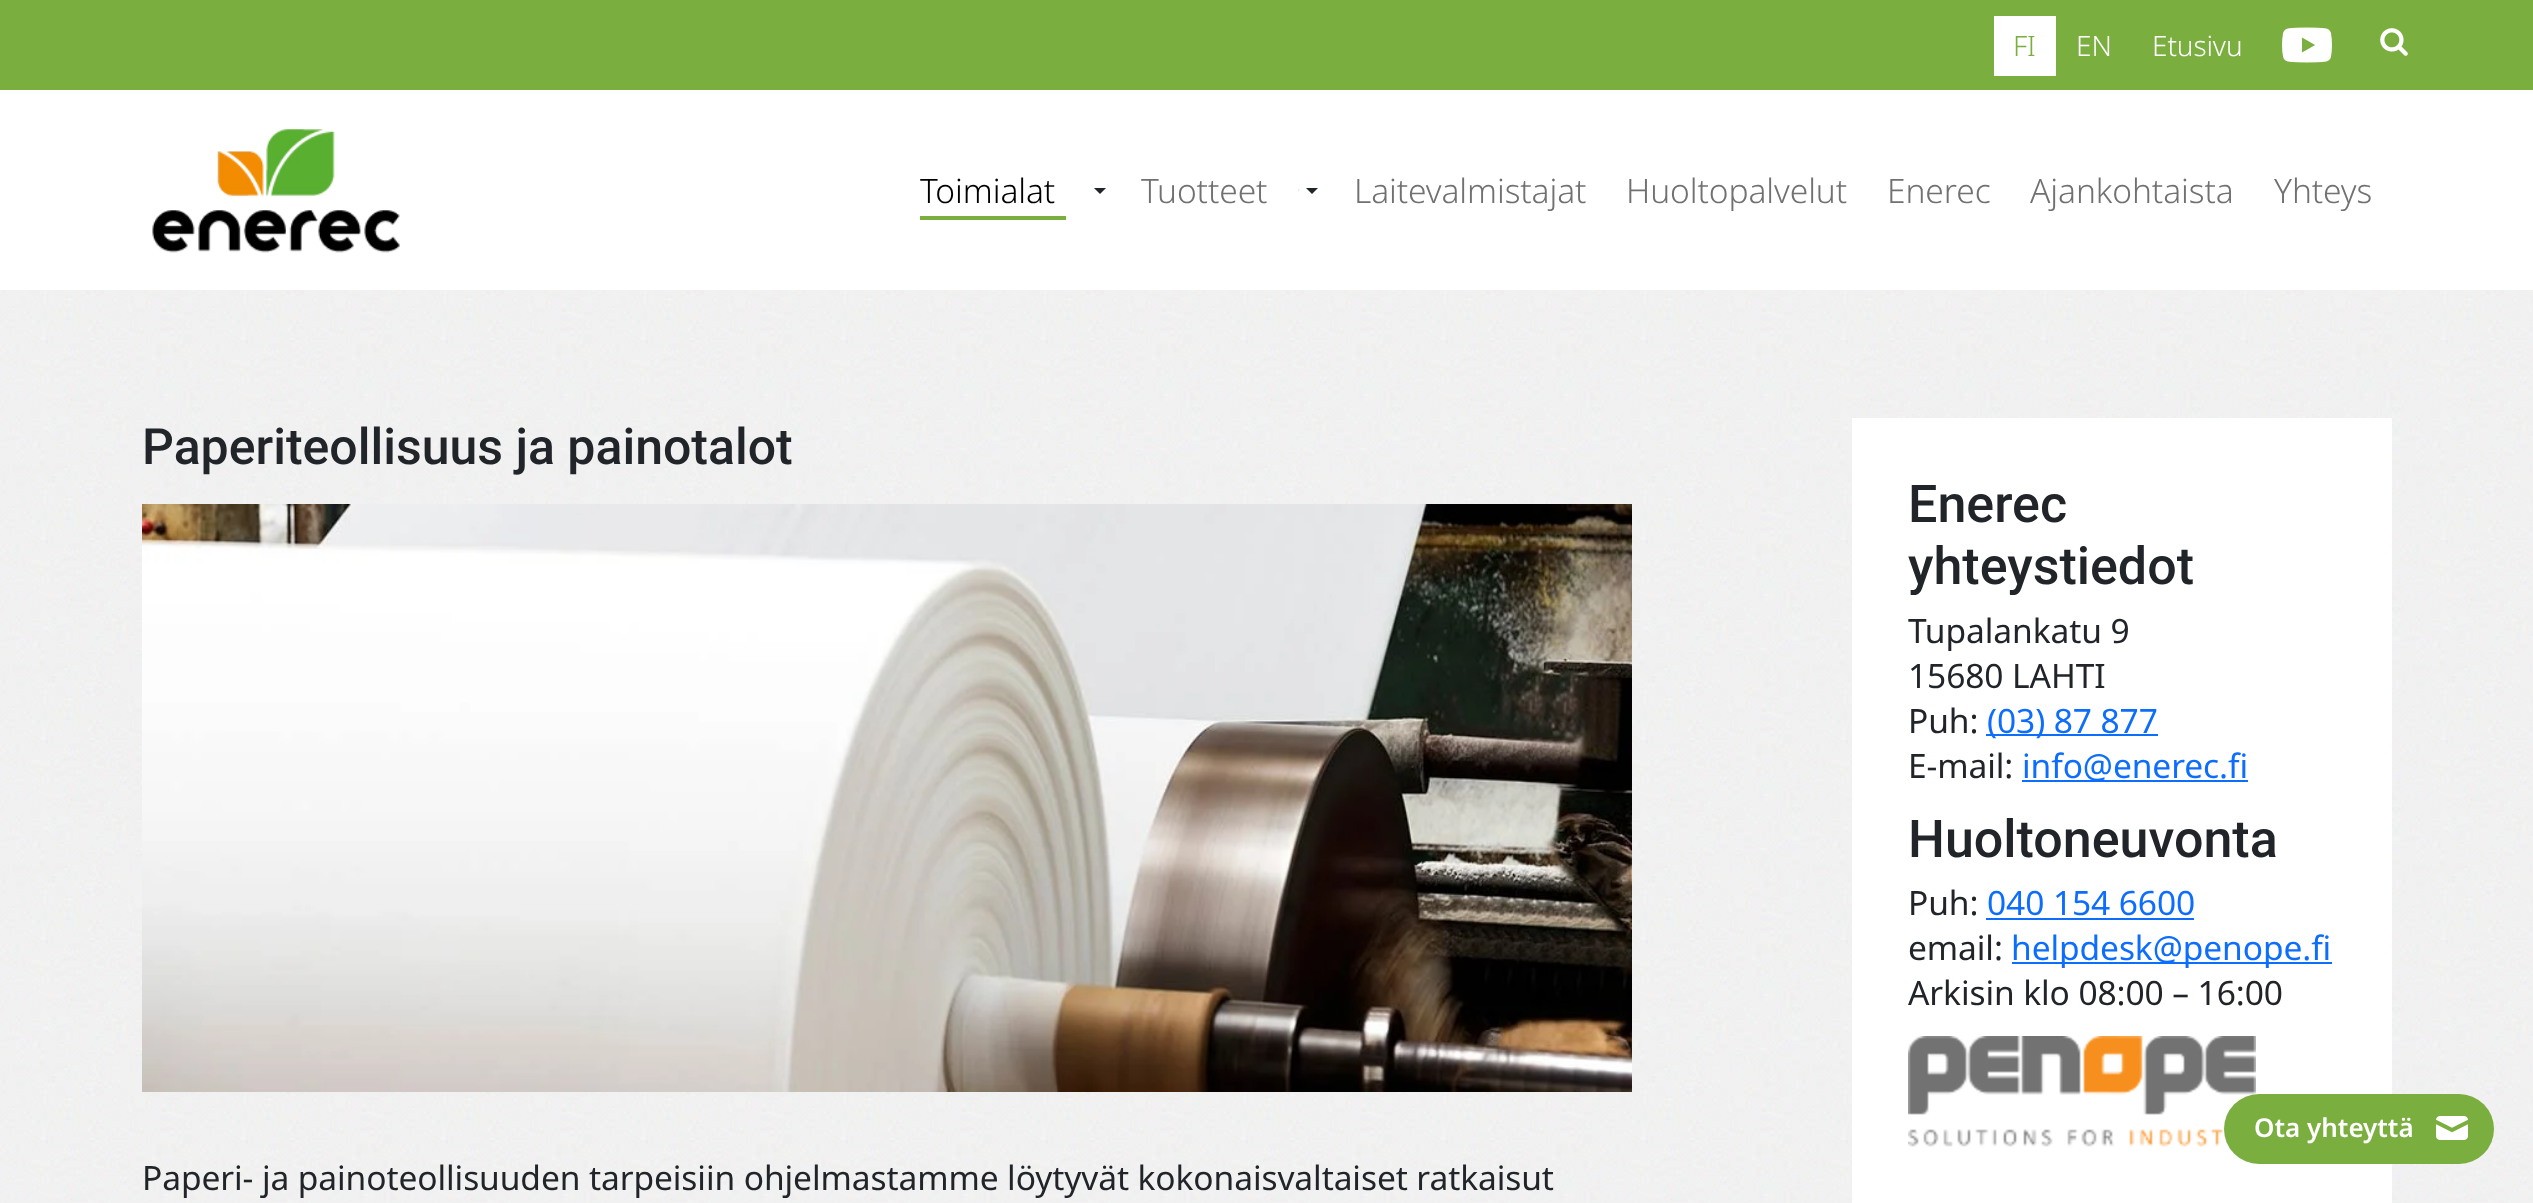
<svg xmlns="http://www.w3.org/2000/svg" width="2533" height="1203">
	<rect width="100%" height="100%" fill="#FFFFFF" />
	<image x="0" y="290" width="2533" height="913" href="assets/img1.png" />
	<rect x="0" y="0" width="2533" height="90" fill="#7AAE3F" />
	<rect x="1994" y="16" width="62" height="60" fill="#FFFFFF" />
	<text x="2013" y="56" font-family="Noto Sans" font-size="28" font-weight="300" letter-spacing="-0.1" fill="#7AAE3F">FI</text>
	<g font-family="Noto Sans" font-size="28" font-weight="300" letter-spacing="-0.1" fill="#FFFFFF">
		<text x="2076" y="56">EN</text>
		<text x="2152" y="56">Etusivu</text>
	</g>
	<image x="2282" y="27" width="50" height="36" href="assets/img2.png" />
	<image x="2380" y="28" width="28" height="28" href="assets/img3.png" />
	<image x="152" y="129" width="248" height="124" href="assets/img4.png" />
	<rect x="920" y="216" width="146" height="4" fill="#7AAE3F" />
	<text x="920" y="203" font-family="Noto Sans" font-size="33.55" font-weight="300" letter-spacing="-0.1" fill="#000000">Toimialat</text>
	<path d="M1094 188H1106L1100 194Z" fill="#212529" />
	<text x="1141" y="203" font-family="Noto Sans" font-size="33.55" font-weight="300" letter-spacing="-0.1" fill="#717171">Tuotteet</text>
	<image x="1298" y="189" width="2" height="2" href="assets/img5.png" />
	<path d="M1306 188H1318L1312 194Z" fill="#212529" />
	<g font-family="Noto Sans" font-size="33.55" font-weight="300" letter-spacing="-0.1" fill="#717171">
		<text x="1354" y="203">Laitevalmistajat</text>
		<text x="1626" y="203">Huoltopalvelut</text>
		<text x="1887" y="203">Enerec</text>
		<text x="2030" y="203">Ajankohtaista</text>
		<text x="2274" y="203">Yhteys</text>
	</g>
	<text x="142" y="464" font-family="Roboto" font-size="50" font-weight="500" fill="#212529">Paperiteollisuus ja painotalot</text>
	<image x="142" y="504" width="1490" height="588" href="assets/img6.png" />
	<text x="142" y="1190" font-family="Noto Sans" font-size="33.55" letter-spacing="-0.1" fill="#212529">Paperi- ja painoteollisuuden tarpeisiin ohjelmastamme löytyvät kokonaisvaltaiset ratkaisut</text>
	<rect x="1852" y="418" width="540" height="785" fill="#FFFFFF" />
	<g font-family="Roboto" font-size="52" font-weight="500" fill="#212529">
		<text x="1908" y="522">Enerec</text>
		<text x="1908" y="584">yhteystiedot</text>
	</g>
	<g font-family="Noto Sans" font-size="33.55" letter-spacing="-0.1" fill="#212529">
		<text x="1908" y="643">Tupalankatu 9</text>
		<text x="1908" y="688">15680 LAHTI</text>
		<text x="1908" y="733">Puh:</text>
	</g>
	<rect x="1986" y="734" width="172" height="2" fill="#0D6EFD" />
	<text x="1987" y="733" font-family="Noto Sans" font-size="33.55" letter-spacing="-0.1" fill="#0D6EFD">(03) 87 877</text>
	<text x="1908" y="778" font-family="Noto Sans" font-size="33.55" letter-spacing="-0.1" fill="#212529">E-mail:</text>
	<rect x="2022" y="780" width="226" height="2" fill="#0D6EFD" />
	<text x="2022" y="778" font-family="Noto Sans" font-size="33.55" letter-spacing="-0.1" fill="#0D6EFD">info@enerec.fi</text>
	<text x="1908" y="857" font-family="Roboto" font-size="52" font-weight="500" fill="#212529">Huoltoneuvonta</text>
	<text x="1908" y="915" font-family="Noto Sans" font-size="33.55" letter-spacing="-0.1" fill="#212529">Puh:</text>
	<text x="1987" y="915" font-family="Noto Sans" font-size="33.55" letter-spacing="-0.1" fill="#0D6EFD">040 154 6600</text>
	<rect x="1986" y="918" width="208" height="2" fill="#0D6EFD" />
	<text x="1908" y="960" font-family="Noto Sans" font-size="33.55" letter-spacing="-0.1" fill="#212529">email:</text>
	<rect x="2012" y="962" width="320" height="2" fill="#0D6EFD" />
	<text x="2011" y="960" font-family="Noto Sans" font-size="33.55" letter-spacing="-0.1" fill="#0D6EFD">helpdesk@penope.fi</text>
	<text x="1908" y="1005" font-family="Noto Sans" font-size="33.55" letter-spacing="-0.1" fill="#212529">Arkisin klo 08:00 – 16:00</text>
	<image x="1908" y="1036" width="348" height="111" href="assets/img7.png" />
	<rect x="2224" y="1094" width="270" height="70" rx="35" fill="#7AAE3F" />
	<image x="2436" y="1116" width="32" height="24" href="assets/img8.png" />
	<text x="2254" y="1137" font-family="Noto Sans" font-size="26" font-weight="600" fill="#FFFFFF">Ota yhteyttä</text>
</svg>
